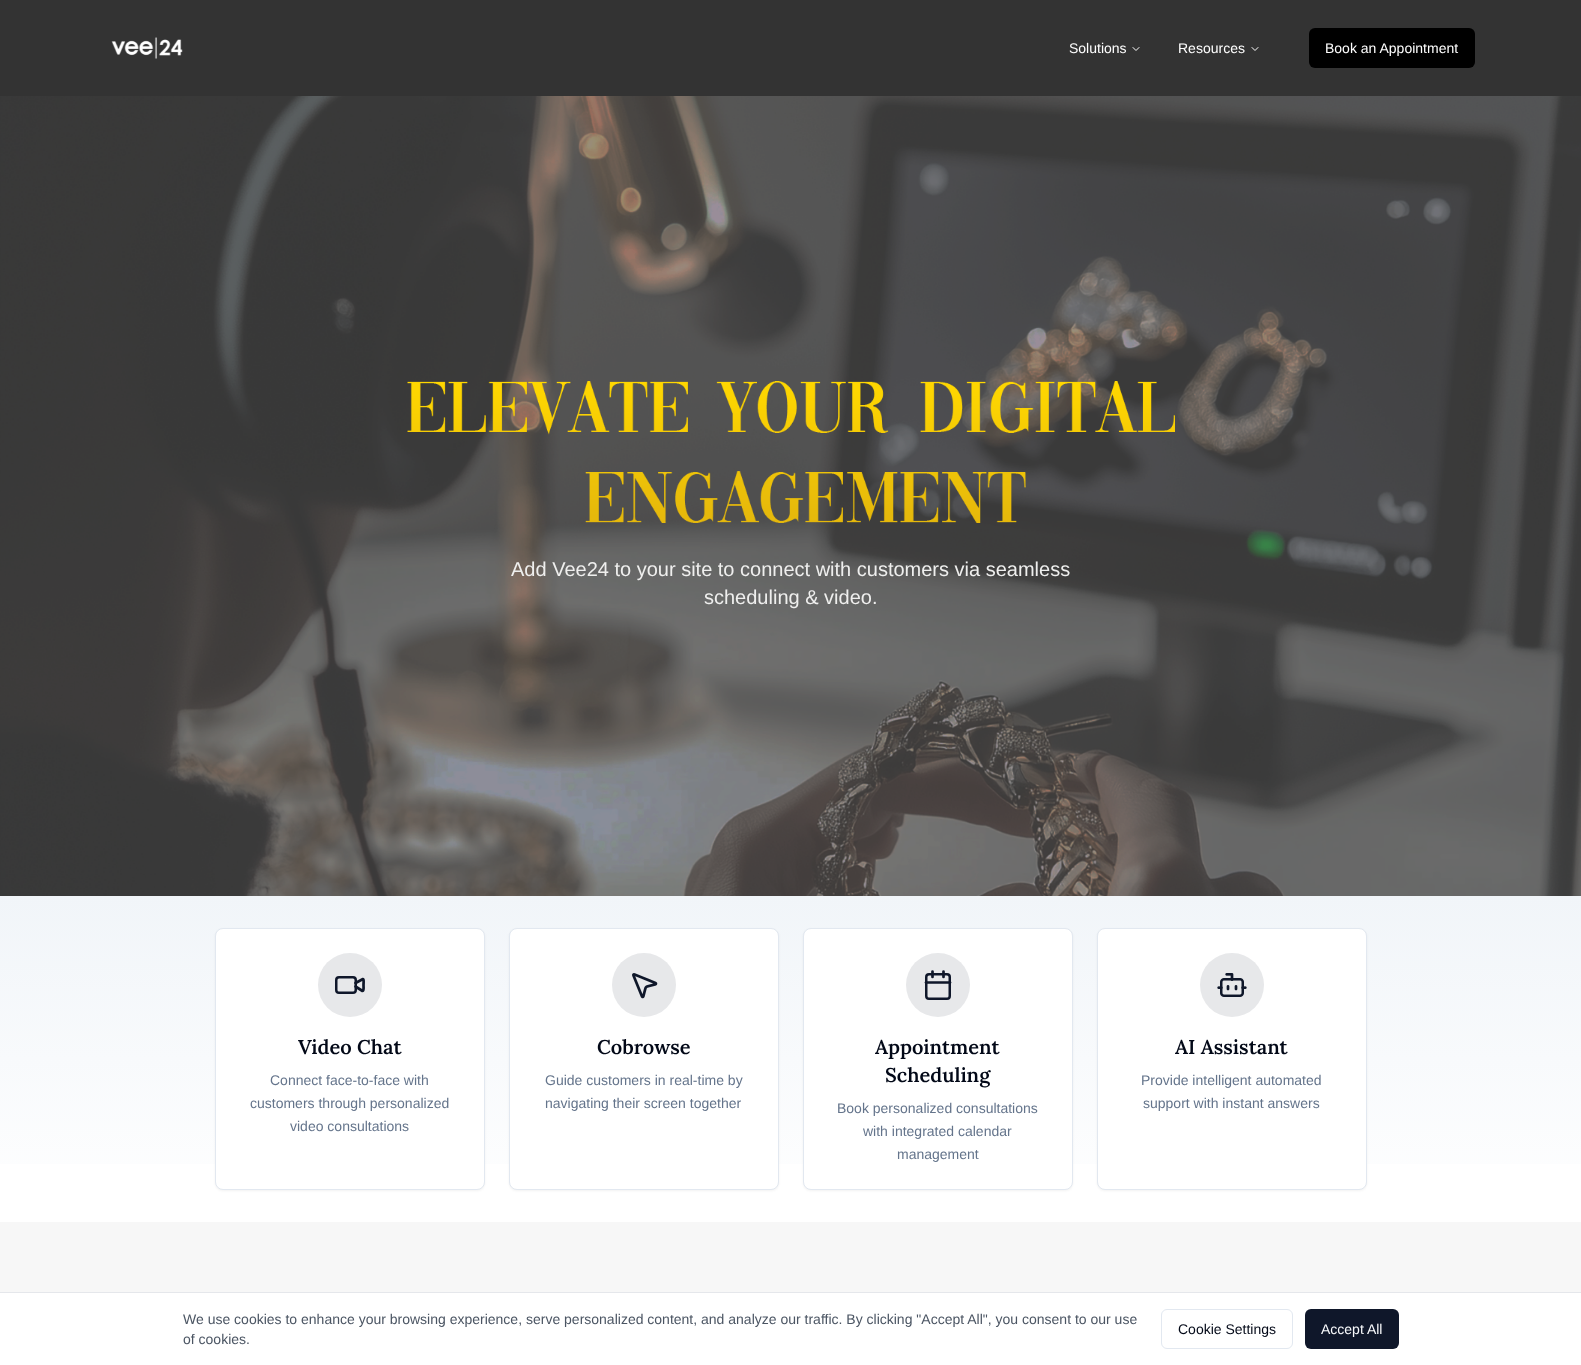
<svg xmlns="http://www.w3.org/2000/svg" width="1581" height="1365">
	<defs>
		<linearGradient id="g1" gradientUnits="userSpaceOnUse" x1="791" y1="896" x2="791" y2="1222"><stop offset="0" stop-color="#F1F5F9" /><stop offset="1" stop-color="#FFFFFF" /></linearGradient>
	</defs>
	<rect width="100%" height="100%" fill="#FFFFFF" />
	<rect x="0" y="0" width="1581" height="96" fill="#333333" />
	<image x="111" y="37" width="72" height="22" href="assets/img1.png" />
	<text x="1069" y="53" font-family="Liberation Sans" font-size="14" fill="#FFFFFF">Solutions</text>
	<path d="M1133 47.5L1136 50.5L1139 47.5" fill="none" stroke="#FFFFFF" stroke-linecap="round" stroke-linejoin="round" />
	<text x="1178" y="53" font-family="Liberation Sans" font-size="14" fill="#FFFFFF">Resources</text>
	<path d="M1252 47.5L1255 50.5L1258 47.5" fill="none" stroke="#FFFFFF" stroke-linecap="round" stroke-linejoin="round" />
	<rect x="1309" y="28" width="166" height="40" rx="6" fill="#000000" />
	<text x="1325" y="53" font-family="Liberation Sans" font-size="14" fill="#FFFFFF">Book an Appointment</text>
	<image x="0" y="96" width="1581" height="800" href="assets/img2.png" />
	<image x="407" y="381" width="768" height="142" href="assets/img3.png" />
	<g font-family="Liberation Sans" font-size="20" fill="#EFEFEE">
		<text x="511" y="576">Add Vee24 to your site to connect with customers via seamless</text>
		<text x="704" y="604">scheduling &amp; video.</text>
	</g>
	<rect x="0" y="896" width="1581" height="268" fill="url(#g1)" />
	<rect x="215" y="929" width="270" height="262" rx="8" fill="#000000" fill-opacity="0.05" filter="blur(1px)" />
	<rect x="215.5" y="928.5" width="269" height="261" rx="7.5" fill="#FFFFFF" stroke="#E2E8F0" />
	<circle cx="350" cy="985" r="32" fill="#E7E8EA" />
	<path d="M355.5 986.5L362.5 991C364 991 363.5 986 363.5 985C363.5 984 364 979 363 979L355.5 983" fill="none" stroke="#0F172A" stroke-width="2.7" stroke-linecap="round" stroke-linejoin="round" />
	<rect x="336.25" y="977.25" width="19.5" height="15.5" rx="2.75" fill="none" stroke="#0F172A" stroke-width="2.5" />
	<text x="298" y="1054" font-family="Lora" font-size="20" font-weight="600" fill="#020817">Video Chat</text>
	<g font-family="Liberation Sans" font-size="14" fill="#64748B">
		<text x="270" y="1085">Connect face-to-face with</text>
		<text x="250" y="1108">customers through personalized</text>
		<text x="290" y="1131">video consultations</text>
	</g>
	<rect x="509" y="929" width="270" height="262" rx="8" fill="#000000" fill-opacity="0.05" filter="blur(1px)" />
	<rect x="509.5" y="928.5" width="269" height="261" rx="7.5" fill="#FFFFFF" stroke="#E2E8F0" />
	<circle cx="644" cy="985" r="32" fill="#E7E8EA" />
	<image x="632" y="973" width="26" height="26" href="assets/img4.png" />
	<text x="597" y="1054" font-family="Lora" font-size="20" font-weight="600" fill="#020817">Cobrowse</text>
	<g font-family="Liberation Sans" font-size="14" fill="#64748B">
		<text x="545" y="1085">Guide customers in real-time by</text>
		<text x="545" y="1108">navigating their screen together</text>
	</g>
	<rect x="803" y="929" width="270" height="262" rx="8" fill="#000000" fill-opacity="0.05" filter="blur(1px)" />
	<rect x="803.5" y="928.5" width="269" height="261" rx="7.5" fill="#FFFFFF" stroke="#E2E8F0" />
	<circle cx="938" cy="985" r="32" fill="#E7E8EA" />
	<path d="M932.5 971.5V977M943.5 971.5V977" fill="none" stroke="#0F172A" stroke-width="2.7" stroke-linecap="round" stroke-linejoin="round" />
	<rect x="926.25" y="974.25" width="23.5" height="24.5" rx="2.75" fill="none" stroke="#0F172A" stroke-width="2.5" />
	<path d="M926 982.5H950" fill="none" stroke="#0F172A" stroke-width="2.7" stroke-linecap="round" stroke-linejoin="round" />
	<g font-family="Lora" font-size="20" font-weight="600" fill="#020817">
		<text x="875" y="1054">Appointment</text>
		<text x="885" y="1082">Scheduling</text>
	</g>
	<g font-family="Liberation Sans" font-size="14" fill="#64748B">
		<text x="837" y="1113">Book personalized consultations</text>
		<text x="863" y="1136">with integrated calendar</text>
		<text x="897" y="1159">management</text>
	</g>
	<rect x="1097" y="929" width="270" height="262" rx="8" fill="#000000" fill-opacity="0.05" filter="blur(1px)" />
	<rect x="1097.5" y="928.5" width="269" height="261" rx="7.5" fill="#FFFFFF" stroke="#E2E8F0" />
	<circle cx="1232" cy="985" r="32" fill="#E7E8EA" />
	<image x="1217" y="973" width="30" height="24" href="assets/img5.png" />
	<text x="1175" y="1054" font-family="Lora" font-size="20" font-weight="600" fill="#020817">AI Assistant</text>
	<g font-family="Liberation Sans" font-size="14" fill="#64748B">
		<text x="1141" y="1085">Provide intelligent automated</text>
		<text x="1143" y="1108">support with instant answers</text>
	</g>
	<rect x="0" y="1222" width="1581" height="70" fill="#F7F7F7" />
	<rect x="0" y="1292" width="1581" height="1" fill="#E5E7EB" />
	<g font-family="Liberation Sans" font-size="14" fill="#4B5563">
		<text x="183" y="1324">We use cookies to enhance your browsing experience, serve personalized content, and analyze our traffic. By clicking "Accept All", you consent to our use</text>
		<text x="183" y="1344">of cookies.</text>
	</g>
	<rect x="1161.5" y="1309.5" width="131" height="39" rx="5.5" fill="none" stroke="#E2E8F0" />
	<text x="1178" y="1334" font-family="Liberation Sans" font-size="14" fill="#020817">Cookie Settings</text>
	<rect x="1305" y="1309" width="94" height="40" rx="6" fill="#0F172A" />
	<text x="1321" y="1334" font-family="Liberation Sans" font-size="14" fill="#F8FAFC">Accept All</text>
</svg>
